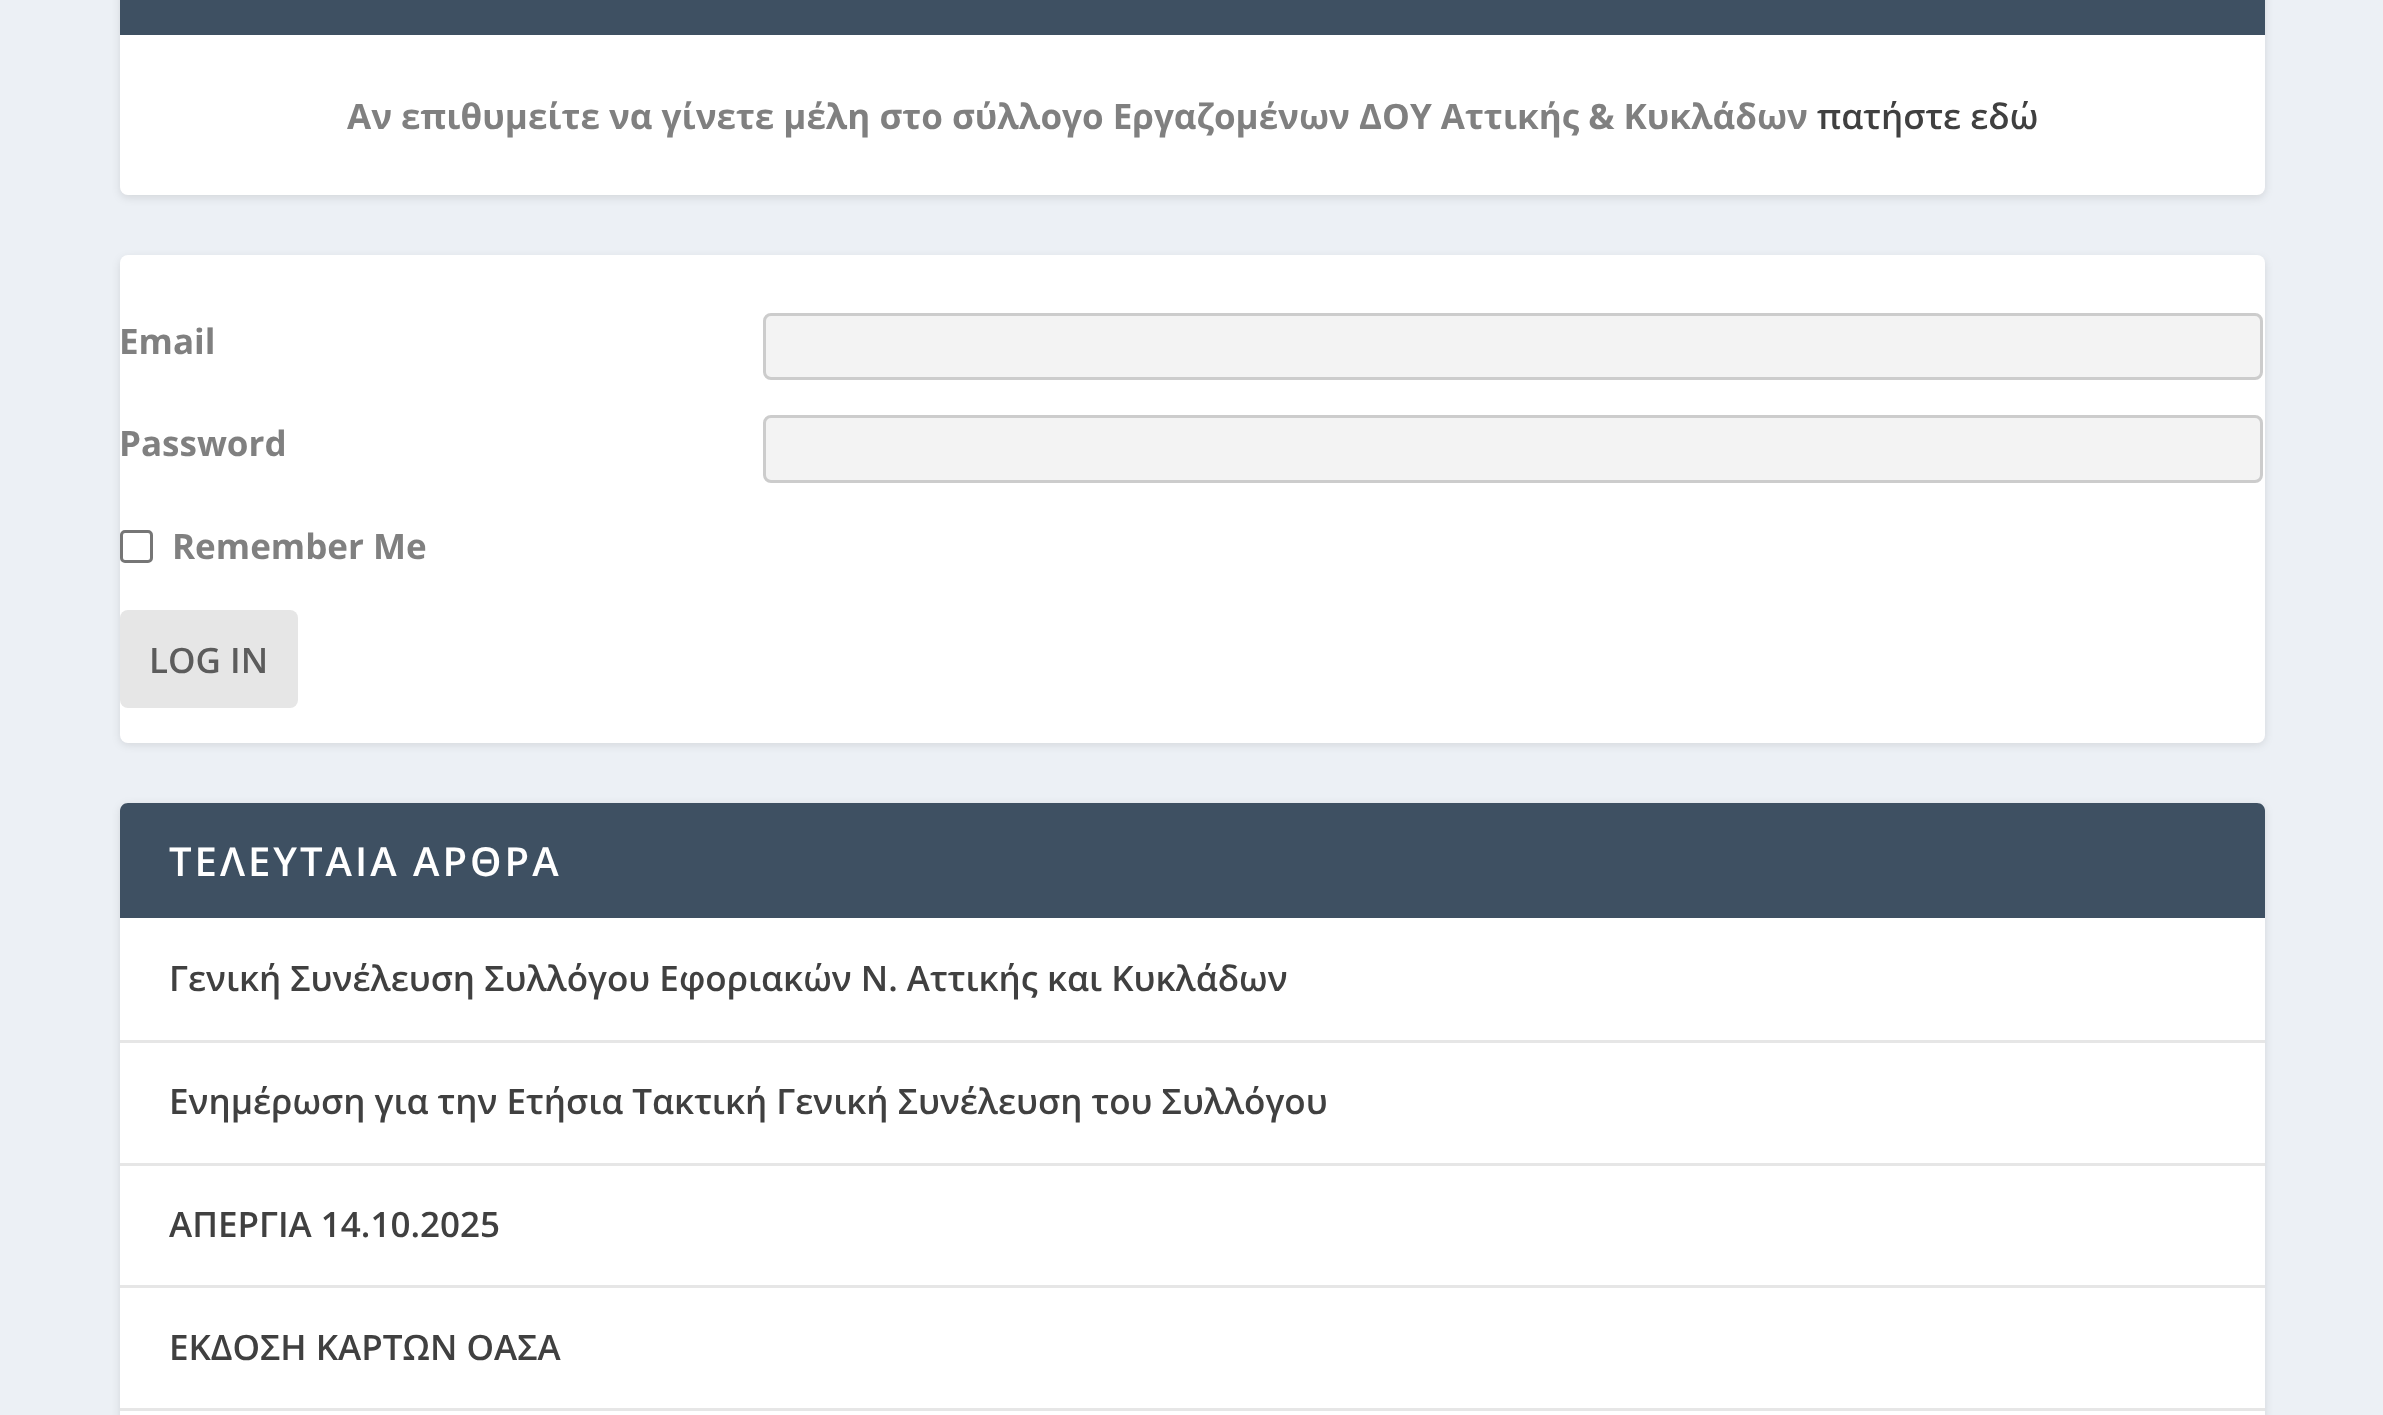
<svg xmlns="http://www.w3.org/2000/svg" width="2383" height="1415">
	<rect width="100%" height="100%" fill="#ECF0F5" />
	<rect x="120" y="-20" width="2145" height="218" rx="8" fill="#000000" fill-opacity="0.1" filter="blur(4px)" />
	<rect x="120" y="-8" width="2145" height="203" rx="8" fill="#FFFFFF" />
	<rect x="120" y="0" width="2145" height="35" fill="#3E5062" />
	<text x="347" y="129" font-family="Open Sans" font-size="35" font-weight="700" fill="#808080">Αν επιθυμείτε να γίνετε μέλη στο σύλλογο Εργαζομένων ΔΟΥ Αττικής &amp; Κυκλάδων</text>
	<text x="1817" y="129" font-family="Open Sans" font-size="35" font-weight="600" fill="#404040">πατήστε εδώ</text>
	<rect x="120" y="258" width="2145" height="487" rx="8" fill="#000000" fill-opacity="0.1" filter="blur(4px)" />
	<rect x="120" y="255" width="2145" height="488" rx="8" fill="#FFFFFF" />
	<text x="119" y="354" font-family="Open Sans" font-size="35" font-weight="700" fill="#808080">Email</text>
	<rect x="764.5" y="314.5" width="1497" height="64" rx="6.5" fill="#F3F3F3" stroke="#CCCCCC" stroke-width="3" />
	<text x="119" y="456" font-family="Open Sans" font-size="35" font-weight="700" fill="#808080">Password</text>
	<rect x="764.5" y="416.5" width="1497" height="65" rx="6.5" fill="#F3F3F3" stroke="#CCCCCC" stroke-width="3" />
	<rect x="121.5" y="531.5" width="30" height="30" rx="3.5" fill="none" stroke="#767676" stroke-width="3" />
	<text x="172" y="559" font-family="Open Sans" font-size="35" font-weight="700" fill="#808080">Remember Me</text>
	<rect x="120" y="610" width="178" height="98" rx="8" fill="#E6E6E6" />
	<text x="149" y="673" font-family="Open Sans" font-size="35" font-weight="600" fill="#5C5C5C">LOG IN</text>
	<rect x="120" y="805" width="2145" height="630" rx="8" fill="#000000" fill-opacity="0.1" filter="blur(4px)" />
	<rect x="120" y="803" width="2145" height="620" rx="8" fill="#FFFFFF" />
	<path d="M128 803H2257C2261.5 803 2265 806.5 2265 811V918H120V811C120 806.5 123.5 803 128 803Z" fill="#3E5062" />
	<text x="169" y="876" font-family="Open Sans" font-size="40" font-weight="600" letter-spacing="3" fill="#FFFFFF">ΤΕΛΕΥΤΑΙΑ ΑΡΘΡΑ</text>
	<rect x="120" y="1040" width="2145" height="3" fill="#E6E6E6" />
	<text x="169" y="991" font-family="Open Sans" font-size="35" font-weight="600" fill="#404040">Γενική Συνέλευση Συλλόγου Εφοριακών Ν. Αττικής και Κυκλάδων</text>
	<rect x="120" y="1163" width="2145" height="3" fill="#E6E6E6" />
	<text x="169" y="1114" font-family="Open Sans" font-size="35" font-weight="600" fill="#404040">Ενημέρωση για την Ετήσια Τακτική Γενική Συνέλευση του Συλλόγου</text>
	<rect x="120" y="1285" width="2145" height="3" fill="#E6E6E6" />
	<text x="169" y="1237" font-family="Open Sans" font-size="35" font-weight="600" fill="#404040">ΑΠΕΡΓΙΑ 14.10.2025</text>
	<rect x="120" y="1408" width="2145" height="3" fill="#E6E6E6" />
	<text x="169" y="1360" font-family="Open Sans" font-size="35" font-weight="600" fill="#404040">ΕΚΔΟΣΗ ΚΑΡΤΩΝ ΟΑΣΑ</text>
</svg>
